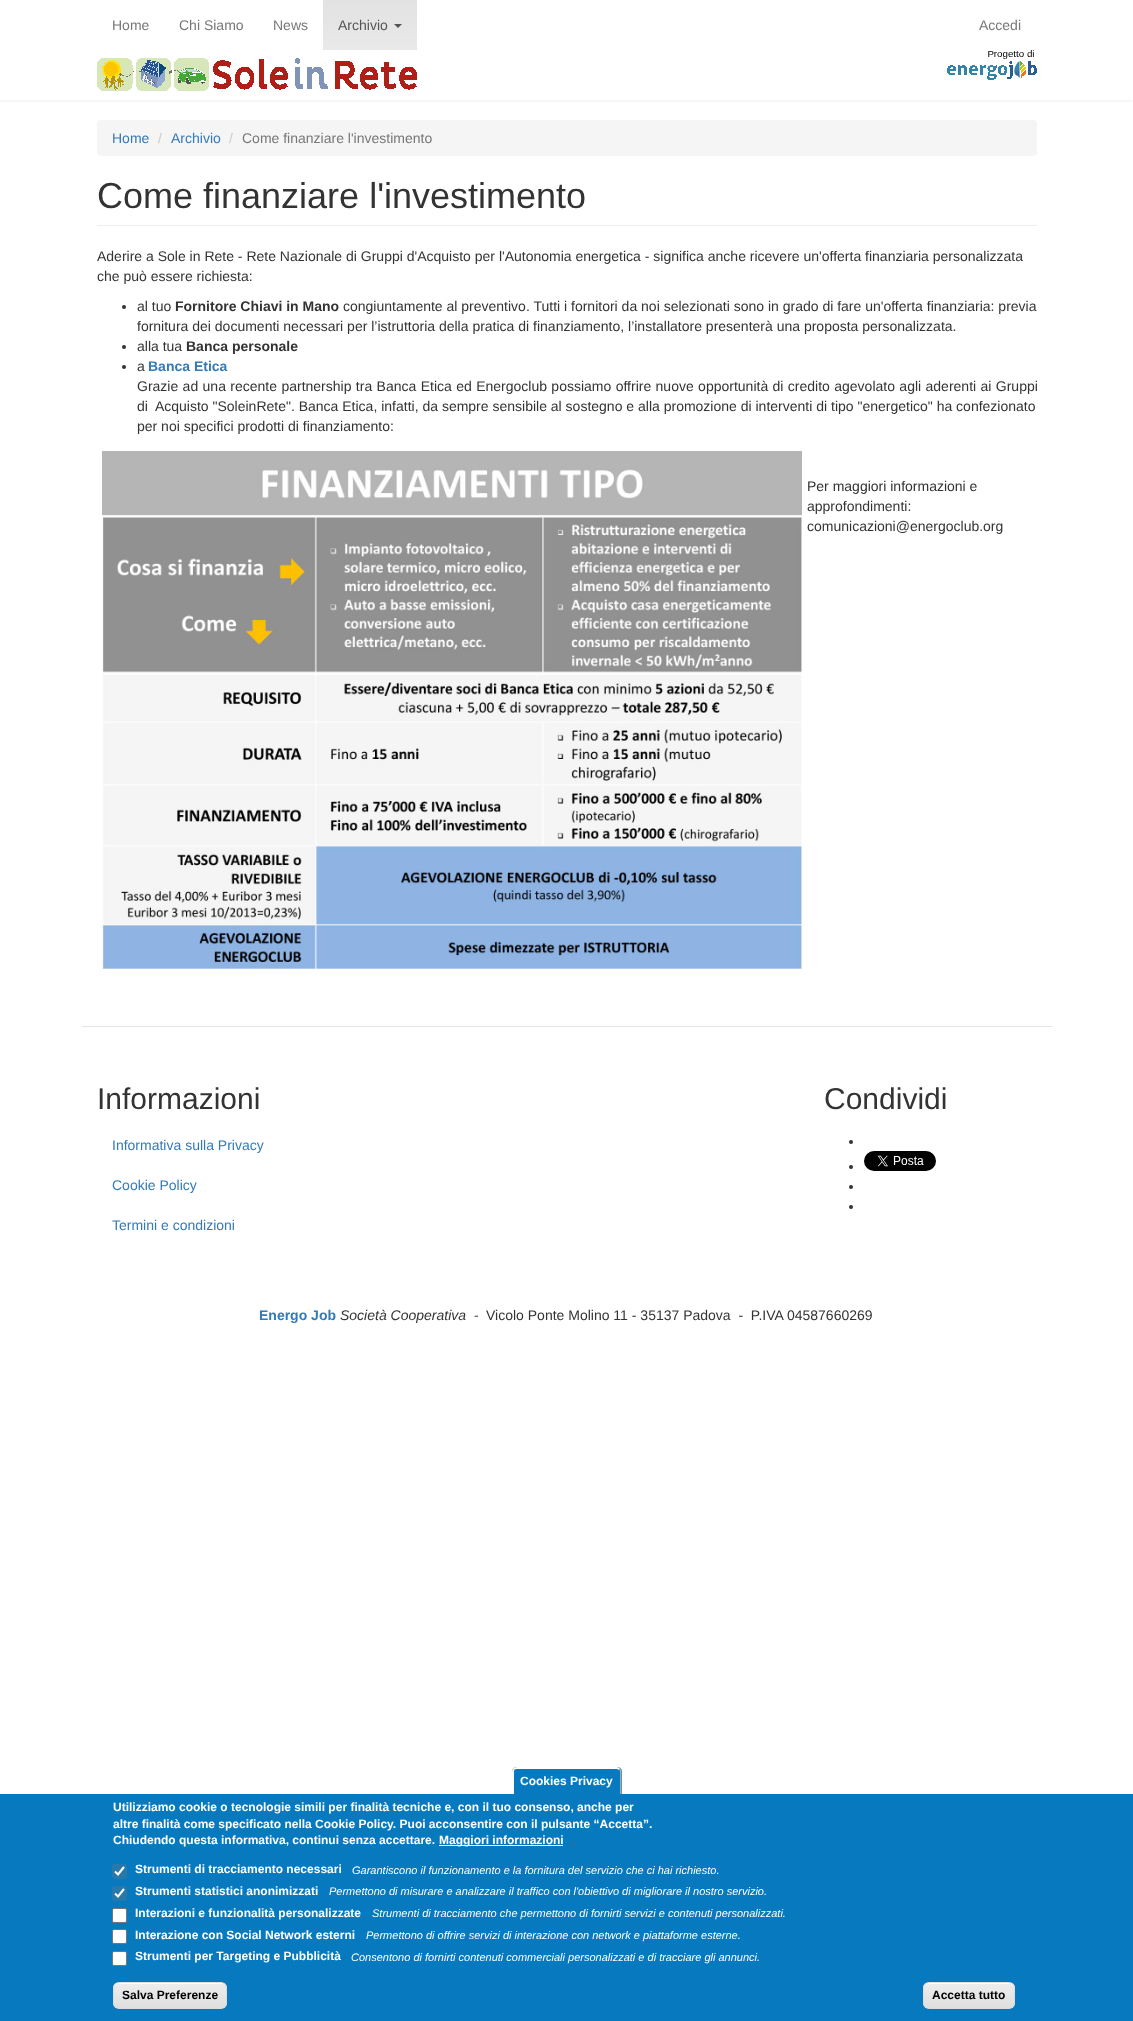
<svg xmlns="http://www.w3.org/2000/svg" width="1133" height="2021">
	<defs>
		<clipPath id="clip1"><rect x="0" y="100" width="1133" height="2" /></clipPath>
		<linearGradient id="g1" gradientUnits="userSpaceOnUse" x1="370" y1="0" x2="370" y2="50"><stop offset="0" stop-color="#E2E2E2" /><stop offset="1" stop-color="#E9E9E9" /></linearGradient>
		<clipPath id="clip2"><rect x="113" y="1982" width="114" height="27" rx="6" /></clipPath>
		<linearGradient id="g2" gradientUnits="userSpaceOnUse" x1="170" y1="1983" x2="170" y2="2008"><stop offset="0.05" stop-color="#EDEDED" /><stop offset="1" stop-color="#DFDFDF" /></linearGradient>
		<clipPath id="clip3"><rect x="923" y="1982" width="92" height="27" rx="6" /></clipPath>
		<linearGradient id="g3" gradientUnits="userSpaceOnUse" x1="969" y1="1983" x2="969" y2="2008"><stop offset="0.05" stop-color="#EDEDED" /><stop offset="1" stop-color="#DFDFDF" /></linearGradient>
	</defs>
	<rect width="100%" height="100%" fill="#FFFFFF" />
	<g clip-path="url(#clip1)">
		<rect x="0" y="1" width="1133" height="100" fill="#000000" fill-opacity="0.07" filter="blur(2.5px)" />
	</g>
	<g font-family="Liberation Sans" font-size="14" fill="#777777">
		<text x="112" y="30">Home</text>
		<text x="179" y="30">Chi Siamo</text>
		<text x="273" y="30">News</text>
	</g>
	<rect x="323" y="0" width="94" height="50" fill="url(#g1)" />
	<text x="338" y="30" font-family="Liberation Sans" font-size="14" fill="#555555">Archivio</text>
	<path d="M394 24H402L398 28Z" fill="#555555" />
	<text x="979" y="30" font-family="Liberation Sans" font-size="14" fill="#777777">Accedi</text>
	<image x="97" y="58" width="320" height="33" href="assets/img1.png" />
	<image x="947" y="50" width="90" height="30" href="assets/img2.png" />
	<rect x="97" y="120" width="940" height="36" rx="4" fill="#F5F5F5" />
	<text x="112" y="143" font-family="Liberation Sans" font-size="14" fill="#337AB7">Home</text>
	<text x="158" y="143" font-family="Liberation Sans" font-size="14" fill="#CCCCCC">/</text>
	<text x="171" y="143" font-family="Liberation Sans" font-size="14" fill="#337AB7">Archivio</text>
	<text x="229" y="143" font-family="Liberation Sans" font-size="14" fill="#CCCCCC">/</text>
	<text x="242" y="143" font-family="Liberation Sans" font-size="14" fill="#777777">Come finanziare l'investimento</text>
	<rect x="97" y="225" width="940" height="1" fill="#EEEEEE" />
	<text x="97" y="208" font-family="Liberation Sans" font-size="36" fill="#333333">Come finanziare l'investimento</text>
	<g font-family="Liberation Sans" font-size="14" fill="#333333">
		<text x="97" y="261">Aderire a Sole in Rete - Rete Nazionale di Gruppi d'Acquisto per l'Autonomia energetica - significa anche ricevere un'offerta finanziaria personalizzata</text>
		<text x="97" y="281">che può essere richiesta:</text>
	</g>
	<circle cx="124" cy="307" r="2" fill="#333333" />
	<text x="137" y="311" font-family="Liberation Sans" font-size="14" fill="#333333">al tuo</text>
	<text x="175" y="311" font-family="Liberation Sans" font-size="14" font-weight="700" fill="#333333">Fornitore Chiavi in Mano</text>
	<g font-family="Liberation Sans" font-size="14" fill="#333333">
		<text x="343" y="311">congiuntamente al preventivo. Tutti i fornitori da noi selezionati sono in grado di fare un'offerta finanziaria: previa</text>
		<text x="137" y="331">fornitura dei documenti necessari per l’istruttoria della pratica di finanziamento, l’installatore presenterà una proposta personalizzata.</text>
	</g>
	<circle cx="124" cy="347" r="2" fill="#333333" />
	<text x="137" y="351" font-family="Liberation Sans" font-size="14" fill="#333333">alla tua</text>
	<text x="186" y="351" font-family="Liberation Sans" font-size="14" font-weight="700" fill="#333333">Banca personale</text>
	<circle cx="124" cy="367" r="2" fill="#333333" />
	<text x="137" y="371" font-family="Liberation Sans" font-size="14" fill="#333333">a</text>
	<text x="148" y="371" font-family="Liberation Sans" font-size="14" font-weight="700" fill="#337AB7">Banca Etica</text>
	<g font-family="Liberation Sans" font-size="14" fill="#333333">
		<text x="137" y="391" word-spacing="0.5">Grazie ad una recente partnership tra Banca Etica ed Energoclub possiamo offrire nuove opportunità di credito agevolato agli aderenti ai Gruppi</text>
		<text x="137" y="411" xml:space="preserve">di  Acquisto "SoleinRete". Banca Etica, infatti, da sempre sensibile al sostegno e alla promozione di interventi di tipo "energetico" ha confezionato</text>
		<text x="137" y="431">per noi specifici prodotti di finanziamento:</text>
	</g>
	<image x="102" y="451" width="700" height="518" href="assets/img3.png" />
	<g font-family="Liberation Sans" font-size="14" fill="#333333">
		<text x="807" y="491">Per maggiori informazioni e</text>
		<text x="807" y="511">approfondimenti:</text>
		<text x="807" y="531">comunicazioni@energoclub.org</text>
	</g>
	<rect x="82" y="1026" width="970" height="1" fill="#E5E5E5" />
	<text x="97" y="1109" font-family="Liberation Sans" font-size="30" fill="#333333">Informazioni</text>
	<g font-family="Liberation Sans" font-size="14" fill="#337AB7">
		<text x="112" y="1150">Informativa sulla Privacy</text>
		<text x="112" y="1190">Cookie Policy</text>
		<text x="112" y="1230">Termini e condizioni</text>
	</g>
	<text x="824" y="1109" font-family="Liberation Sans" font-size="30" fill="#333333">Condividi</text>
	<circle cx="851" cy="1142" r="2" fill="#333333" />
	<circle cx="851" cy="1167" r="2" fill="#333333" />
	<image x="864" y="1151" width="72" height="20" href="assets/img4.png" />
	<circle cx="851" cy="1187" r="2" fill="#333333" />
	<circle cx="851" cy="1207" r="2" fill="#333333" />
	<text x="259" y="1320" font-family="Liberation Sans" font-size="14" font-weight="700" fill="#337AB7">Energo Job</text>
	<text x="340" y="1320" font-family="Liberation Sans" font-size="14" font-style="italic" fill="#333333" xml:space="preserve">Società Cooperativa  -</text>
	<text x="486" y="1320" font-family="Liberation Sans" font-size="14" fill="#333333" xml:space="preserve">Vicolo Ponte Molino 11 - 35137 Padova  -  P.IVA 04587660269</text>
	<rect x="0" y="1794" width="1133" height="227" fill="#0779BF" />
	<path d="M517 1767H617C620 1767 622 1769 622 1772V1794H512V1772C512 1769 514 1767 517 1767Z" fill="#0779BF" />
	<path d="M517 1767H617L620 1768L619 1770L617 1769H517C516 1769 515 1769 515 1770L513 1768C514 1768 515 1767 517 1767Z" fill="#FFFFFF" />
	<path d="M620 1768.5L621.5 1770.5V1794H620V1772C620 1771 619.5 1770 619 1769.5Z" fill="#AAAAAA" />
	<path d="M514 1794H512V1772C512 1770.5 512.5 1769.5 513.5 1768.5L514.5 1770C514 1770.5 514 1771 514 1772Z" fill="#FFFFFF" />
	<g font-family="Liberation Sans" font-size="12" font-weight="700" fill="#FFFFFF">
		<text x="520" y="1785">Cookies Privacy</text>
		<text x="113" y="1811">Utilizziamo cookie o tecnologie simili per finalità tecniche e, con il tuo consenso, anche per</text>
		<text x="113" y="1828">altre finalità come specificato nella Cookie Policy. Puoi acconsentire con il pulsante “Accetta”.</text>
		<text x="113" y="1844">Chiudendo questa informativa, continui senza accettare.</text>
	</g>
	<rect x="439" y="1845" width="124" height="1" fill="#FFFFFF" />
	<text x="439" y="1844" font-family="Liberation Sans" font-size="12" font-weight="700" fill="#FFFFFF">Maggiori informazioni</text>
	<rect x="112" y="1864" width="15" height="15" rx="2" fill="#2878A9" />
	<path d="M115 1871.5L118 1874.5L124 1867" fill="none" stroke="#FFFFFF" stroke-width="2.1" />
	<text x="135" y="1873" font-family="Liberation Sans" font-size="12" font-weight="700" fill="#FFFFFF">Strumenti di tracciamento necessari</text>
	<text x="352" y="1874" font-family="Liberation Sans" font-size="11" font-style="italic" fill="#FFFFFF">Garantiscono il funzionamento e la fornitura del servizio che ci hai richiesto.</text>
	<rect x="112" y="1886" width="15" height="15" rx="2" fill="#2878A9" />
	<path d="M115 1893.5L118 1896.5L124 1889" fill="none" stroke="#FFFFFF" stroke-width="2.1" />
	<text x="135" y="1895" font-family="Liberation Sans" font-size="12" font-weight="700" fill="#FFFFFF">Strumenti statistici anonimizzati</text>
	<text x="329" y="1895" font-family="Liberation Sans" font-size="11" font-style="italic" fill="#FFFFFF">Permettono di misurare e analizzare il traffico con l'obiettivo di migliorare il nostro servizio.</text>
	<rect x="112.5" y="1908.5" width="14" height="14" rx="1.5" fill="#FFFFFF" stroke="#767676" />
	<text x="135" y="1917" font-family="Liberation Sans" font-size="12" font-weight="700" fill="#FFFFFF">Interazioni e funzionalità personalizzate</text>
	<text x="372" y="1917" font-family="Liberation Sans" font-size="11" font-style="italic" fill="#FFFFFF">Strumenti di tracciamento che permettono di fornirti servizi e contenuti personalizzati.</text>
	<rect x="112.5" y="1929.5" width="14" height="14" rx="1.5" fill="#FFFFFF" stroke="#767676" />
	<text x="135" y="1939" font-family="Liberation Sans" font-size="12" font-weight="700" fill="#FFFFFF">Interazione con Social Network esterni</text>
	<text x="366" y="1939" font-family="Liberation Sans" font-size="11" font-style="italic" fill="#FFFFFF">Permettono di offrire servizi di interazione con network e piattaforme esterne.</text>
	<rect x="112.5" y="1951.5" width="14" height="14" rx="1.5" fill="#FFFFFF" stroke="#767676" />
	<text x="135" y="1960" font-family="Liberation Sans" font-size="12" font-weight="700" fill="#FFFFFF">Strumenti per Targeting e Pubblicità</text>
	<text x="351" y="1961" font-family="Liberation Sans" font-size="11" font-style="italic" fill="#FFFFFF">Consentono di fornirti contenuti commerciali personalizzati e di tracciare gli annunci.</text>
	<g clip-path="url(#clip2)">
		<rect x="113" y="1983" width="114" height="25" fill="url(#g2)" />
	</g>
	<path d="M119 1984H221C224 1984 226 1986 226 1989C226 1979 209 1983 204 1983H136C131 1983 114 1979 114 1989C114 1986 116 1984 119 1984Z" fill="#FFFFFF" />
	<rect x="113.5" y="1982.5" width="113" height="26" rx="5.5" fill="none" stroke="#DCDCDC" />
	<text x="122" y="1999" font-family="Liberation Sans" font-size="12" font-weight="700" fill="#000000">Salva Preferenze</text>
	<g clip-path="url(#clip3)">
		<rect x="923" y="1983" width="92" height="25" fill="url(#g3)" />
	</g>
	<path d="M929 1984H1009C1012 1984 1014 1986 1014 1989C1014 1980 1001 1983 996 1983H942C937 1983 924 1980 924 1989C924 1986 926 1984 929 1984Z" fill="#FFFFFF" />
	<rect x="923.5" y="1982.5" width="91" height="26" rx="5.5" fill="none" stroke="#DCDCDC" />
	<text x="932" y="1999" font-family="Liberation Sans" font-size="12" font-weight="700" fill="#000000">Accetta tutto</text>
</svg>
